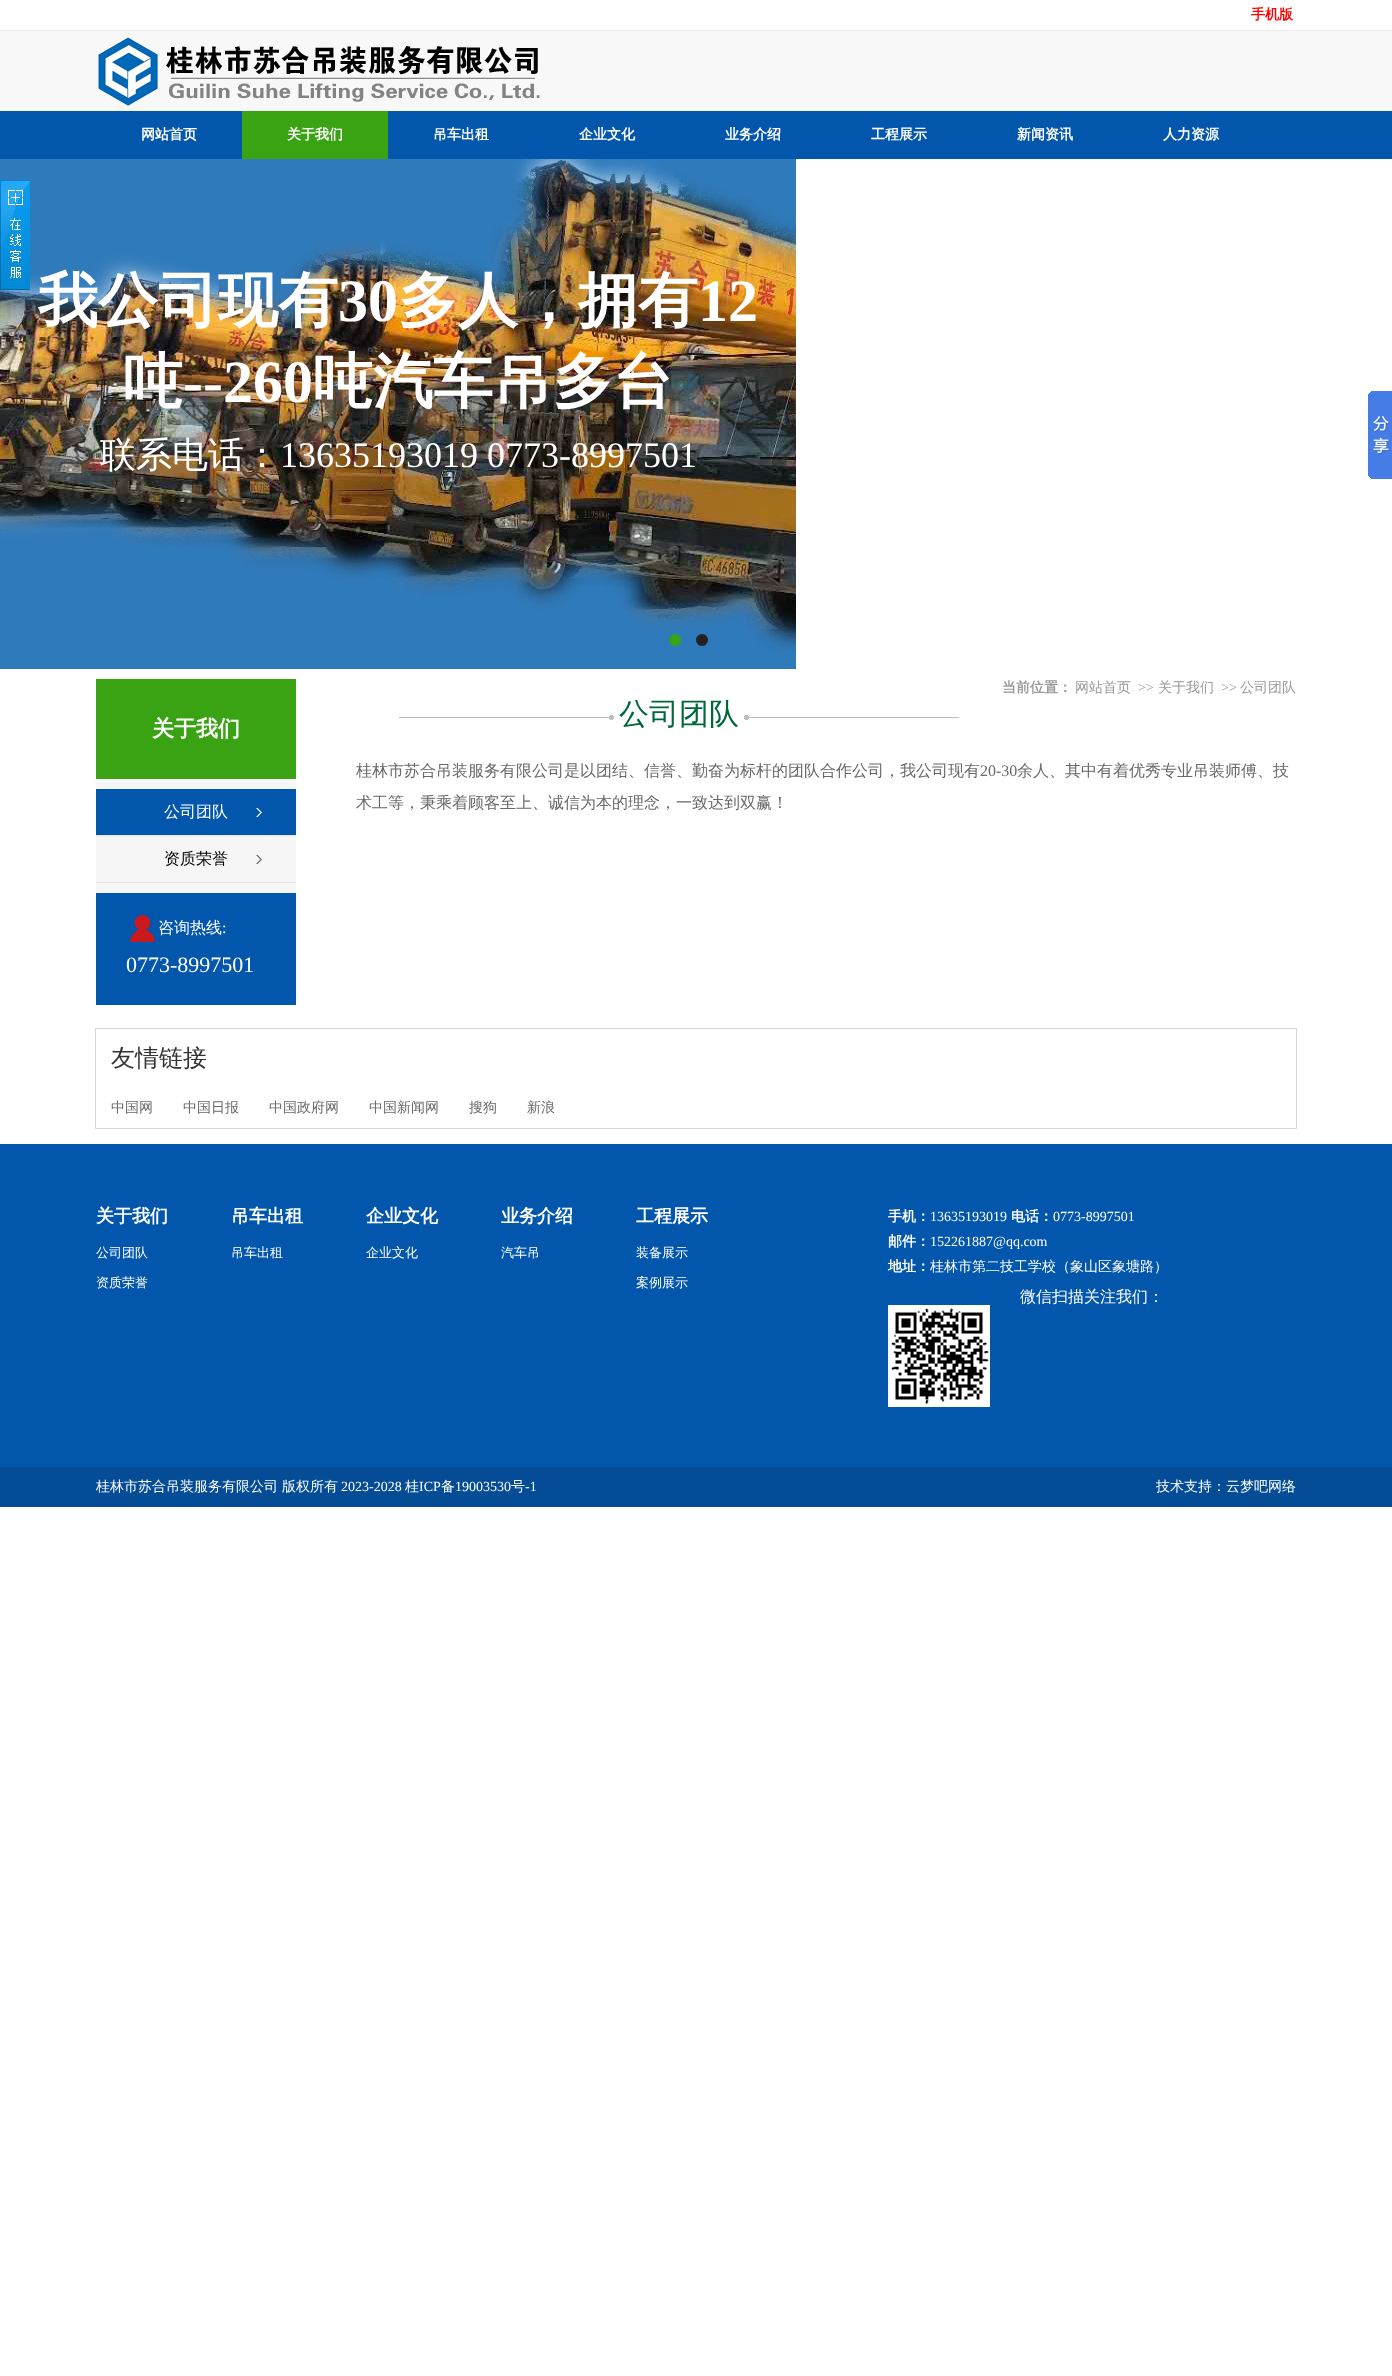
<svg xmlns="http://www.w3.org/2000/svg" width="1392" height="2376">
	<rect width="100%" height="100%" fill="#FFFFFF" />
	<rect x="0" y="30" width="1392" height="1" fill="#EBEBEB" />
	<text x="1251" y="19" font-family="WenQuanYi Zen Hei" font-size="14" font-weight="700" fill="#FF0000">手机版</text>
	<rect x="0" y="31" width="1392" height="80" fill="#F8F8F8" />
	<image x="98" y="37" width="442" height="69" href="assets/img1.png" />
	<rect x="0" y="111" width="1392" height="48" fill="#0256AC" />
	<text x="141" y="139" font-family="WenQuanYi Zen Hei" font-size="14" font-weight="700" fill="#FFFFFF">网站首页</text>
	<rect x="242" y="111" width="146" height="48" fill="#3AA314" />
	<g font-family="WenQuanYi Zen Hei" font-size="14" font-weight="700" fill="#FFFFFF">
		<text x="287" y="139">关于我们</text>
		<text x="433" y="139">吊车出租</text>
		<text x="579" y="139">企业文化</text>
		<text x="725" y="139">业务介绍</text>
		<text x="871" y="139">工程展示</text>
		<text x="1017" y="139">新闻资讯</text>
		<text x="1163" y="139">人力资源</text>
	</g>
	<image x="0" y="159" width="796" height="510" href="assets/img3.png" />
	<image x="0" y="180" width="30" height="110" href="assets/img2.png" />
	<text x="38" y="321" font-family="WenQuanYi Zen Hei" font-size="60" font-weight="700" fill="#FFFFFF">我公司现有</text>
	<text x="338" y="321" font-family="Liberation Serif" font-size="60" font-weight="700" fill="#FFFFFF">30</text>
	<text x="398" y="321" font-family="WenQuanYi Zen Hei" font-size="60" font-weight="700" fill="#FFFFFF">多人，拥有</text>
	<text x="698" y="321" font-family="Liberation Serif" font-size="60" font-weight="700" fill="#FFFFFF">12</text>
	<text x="123" y="402" font-family="WenQuanYi Zen Hei" font-size="60" font-weight="700" fill="#FFFFFF">吨</text>
	<text x="183" y="402" font-family="Liberation Serif" font-size="60" font-weight="700" fill="#FFFFFF">--260</text>
	<text x="313" y="402" font-family="WenQuanYi Zen Hei" font-size="60" font-weight="700" fill="#FFFFFF">吨汽车吊多台</text>
	<text x="100" y="467" font-family="WenQuanYi Zen Hei" font-size="36" font-weight="500" fill="#FFFFFF">联系电话：</text>
	<text x="280" y="467" font-family="Liberation Serif" font-size="36" fill="#FFFFFF">13635193019 0773-8997501</text>
	<circle cx="675" cy="640" r="6" fill="#3AA314" />
	<circle cx="702" cy="640" r="6" fill="#222222" />
	<image x="1368" y="391" width="24" height="88" href="assets/img4.png" />
	<rect x="96" y="679" width="200" height="100" fill="#3AA314" />
	<text x="152" y="736" font-family="WenQuanYi Zen Hei" font-size="22" font-weight="700" fill="#FFFFFF">关于我们</text>
	<rect x="96" y="779" width="200" height="114" fill="#F6F6F6" />
	<rect x="96" y="835" width="200" height="1" fill="#E5E5E5" />
	<rect x="96" y="789" width="200" height="46" fill="#0256AC" />
	<image x="256" y="808" width="6" height="9" href="assets/img5.png" />
	<text x="164" y="817" font-family="WenQuanYi Zen Hei" font-size="16" font-weight="500" fill="#FFFFFF">公司团队</text>
	<image x="256" y="855" width="6" height="9" href="assets/img6.png" />
	<rect x="96" y="882" width="200" height="1" fill="#E5E5E5" />
	<text x="164" y="864" font-family="WenQuanYi Zen Hei" font-size="16" font-weight="500" fill="#000000">资质荣誉</text>
	<rect x="96" y="893" width="200" height="112" fill="#0256AC" />
	<image x="130" y="915" width="25" height="27" href="assets/img7.png" />
	<text x="158" y="933" font-family="WenQuanYi Zen Hei" font-size="16" font-weight="500" fill="#FFFFFF">咨询热线</text>
	<text x="222" y="933" font-family="Liberation Serif" font-size="16" fill="#FFFFFF">:</text>
	<text x="126" y="972" font-family="Liberation Serif" font-size="22" fill="#FFFFFF">0773-8997501</text>
	<text x="1002" y="692" font-family="WenQuanYi Zen Hei" font-size="14" font-weight="700" fill="#999999">当前位置：</text>
	<text x="1075" y="692" font-family="WenQuanYi Zen Hei" font-size="14" font-weight="500" fill="#999999">网站首页</text>
	<text x="1138" y="692" font-family="Liberation Serif" font-size="14" fill="#999999">&gt;&gt;</text>
	<text x="1158" y="692" font-family="WenQuanYi Zen Hei" font-size="14" font-weight="500" fill="#999999">关于我们</text>
	<text x="1221" y="692" font-family="Liberation Serif" font-size="14" fill="#999999">&gt;&gt;</text>
	<text x="1240" y="692" font-family="WenQuanYi Zen Hei" font-size="14" font-weight="500" fill="#999999">公司团队</text>
	<image x="399" y="715" width="215" height="5" href="assets/img8.png" />
	<text x="619" y="724" font-family="WenQuanYi Zen Hei" font-size="30" font-weight="500" fill="#01673A">公司团队</text>
	<image x="744" y="715" width="215" height="5" href="assets/img9.png" />
	<text x="356" y="776" font-family="WenQuanYi Zen Hei" font-size="16" font-weight="500" fill="#696868">桂林市苏合吊装服务有限公司是以团结、信誉、勤奋为标杆的团队合作公司，我公司现有</text>
	<text x="980" y="776" font-family="Liberation Serif" font-size="16" fill="#696868">20-30</text>
	<g font-family="WenQuanYi Zen Hei" font-size="16" font-weight="500" fill="#696868">
		<text x="1017" y="776">余人、其中有着优秀专业吊装师傅、技</text>
		<text x="356" y="808">术工等，秉乘着顾客至上、诚信为本的理念，一致达到双赢！</text>
	</g>
	<rect x="95.5" y="1028.5" width="1201" height="100" fill="none" stroke="#D6D6D6" />
	<text x="111" y="1066" font-family="WenQuanYi Zen Hei" font-size="24" font-weight="500" fill="#333333">友情链接</text>
	<g font-family="WenQuanYi Zen Hei" font-size="14" font-weight="500" fill="#696868">
		<text x="111" y="1112">中国网</text>
		<text x="183" y="1112">中国日报</text>
		<text x="269" y="1112">中国政府网</text>
		<text x="369" y="1112">中国新闻网</text>
		<text x="469" y="1112">搜狗</text>
		<text x="527" y="1112">新浪</text>
	</g>
	<rect x="0" y="1144" width="1392" height="323" fill="#0256AC" />
	<text x="96" y="1222" font-family="WenQuanYi Zen Hei" font-size="18" font-weight="700" fill="#FFFFFF">关于我们</text>
	<g font-family="WenQuanYi Zen Hei" font-size="13" font-weight="500" fill="#FFFFFF">
		<text x="96" y="1257">公司团队</text>
		<text x="96" y="1287">资质荣誉</text>
	</g>
	<text x="231" y="1222" font-family="WenQuanYi Zen Hei" font-size="18" font-weight="700" fill="#FFFFFF">吊车出租</text>
	<text x="231" y="1257" font-family="WenQuanYi Zen Hei" font-size="13" font-weight="500" fill="#FFFFFF">吊车出租</text>
	<text x="366" y="1222" font-family="WenQuanYi Zen Hei" font-size="18" font-weight="700" fill="#FFFFFF">企业文化</text>
	<text x="366" y="1257" font-family="WenQuanYi Zen Hei" font-size="13" font-weight="500" fill="#FFFFFF">企业文化</text>
	<text x="501" y="1222" font-family="WenQuanYi Zen Hei" font-size="18" font-weight="700" fill="#FFFFFF">业务介绍</text>
	<text x="501" y="1257" font-family="WenQuanYi Zen Hei" font-size="13" font-weight="500" fill="#FFFFFF">汽车吊</text>
	<text x="636" y="1222" font-family="WenQuanYi Zen Hei" font-size="18" font-weight="700" fill="#FFFFFF">工程展示</text>
	<g font-family="WenQuanYi Zen Hei" font-size="13" font-weight="500" fill="#FFFFFF">
		<text x="636" y="1257">装备展示</text>
		<text x="636" y="1287">案例展示</text>
	</g>
	<text x="888" y="1221" font-family="WenQuanYi Zen Hei" font-size="14" font-weight="700" fill="#FFFFFF">手机：</text>
	<text x="930" y="1221" font-family="Liberation Serif" font-size="14" fill="#FFFFFF">13635193019</text>
	<text x="1011" y="1221" font-family="WenQuanYi Zen Hei" font-size="14" font-weight="700" fill="#FFFFFF">电话：</text>
	<text x="1053" y="1221" font-family="Liberation Serif" font-size="14" fill="#FFFFFF">0773-8997501</text>
	<text x="888" y="1246" font-family="WenQuanYi Zen Hei" font-size="14" font-weight="700" fill="#FFFFFF">邮件：</text>
	<text x="930" y="1246" font-family="Liberation Serif" font-size="14" fill="#FFFFFF">152261887@qq.com</text>
	<text x="888" y="1271" font-family="WenQuanYi Zen Hei" font-size="14" font-weight="700" fill="#FFFFFF">地址：</text>
	<text x="930" y="1271" font-family="WenQuanYi Zen Hei" font-size="14" font-weight="500" fill="#FFFFFF">桂林市第二技工学校（象山区象塘路）</text>
	<text x="1020" y="1302" font-family="WenQuanYi Zen Hei" font-size="16" font-weight="500" fill="#FFFFFF">微信扫描关注我们：</text>
	<image x="888" y="1305" width="102" height="102" href="assets/img10.png" />
	<rect x="0" y="1467" width="1392" height="40" fill="#044C96" />
	<g font-family="WenQuanYi Zen Hei" font-size="14" font-weight="500" fill="#FFFFFF">
		<text x="96" y="1491">桂林市苏合吊装服务有限公司</text>
		<text x="282" y="1491">版权所有</text>
	</g>
	<text x="341" y="1491" font-family="Liberation Serif" font-size="14" fill="#FFFFFF">2023-2028</text>
	<text x="405" y="1491" font-family="WenQuanYi Zen Hei" font-size="14" font-weight="500" fill="#FFFFFF">桂</text>
	<text x="419" y="1491" font-family="Liberation Serif" font-size="14" fill="#FFFFFF">ICP</text>
	<text x="441" y="1491" font-family="WenQuanYi Zen Hei" font-size="14" font-weight="500" fill="#FFFFFF">备</text>
	<text x="455" y="1491" font-family="Liberation Serif" font-size="14" fill="#FFFFFF">19003530</text>
	<text x="511" y="1491" font-family="WenQuanYi Zen Hei" font-size="14" font-weight="500" fill="#FFFFFF">号</text>
	<text x="525" y="1491" font-family="Liberation Serif" font-size="14" fill="#FFFFFF">-1</text>
	<text x="1156" y="1491" font-family="WenQuanYi Zen Hei" font-size="14" font-weight="500" fill="#FFFFFF">技术支持：云梦吧网络</text>
</svg>
